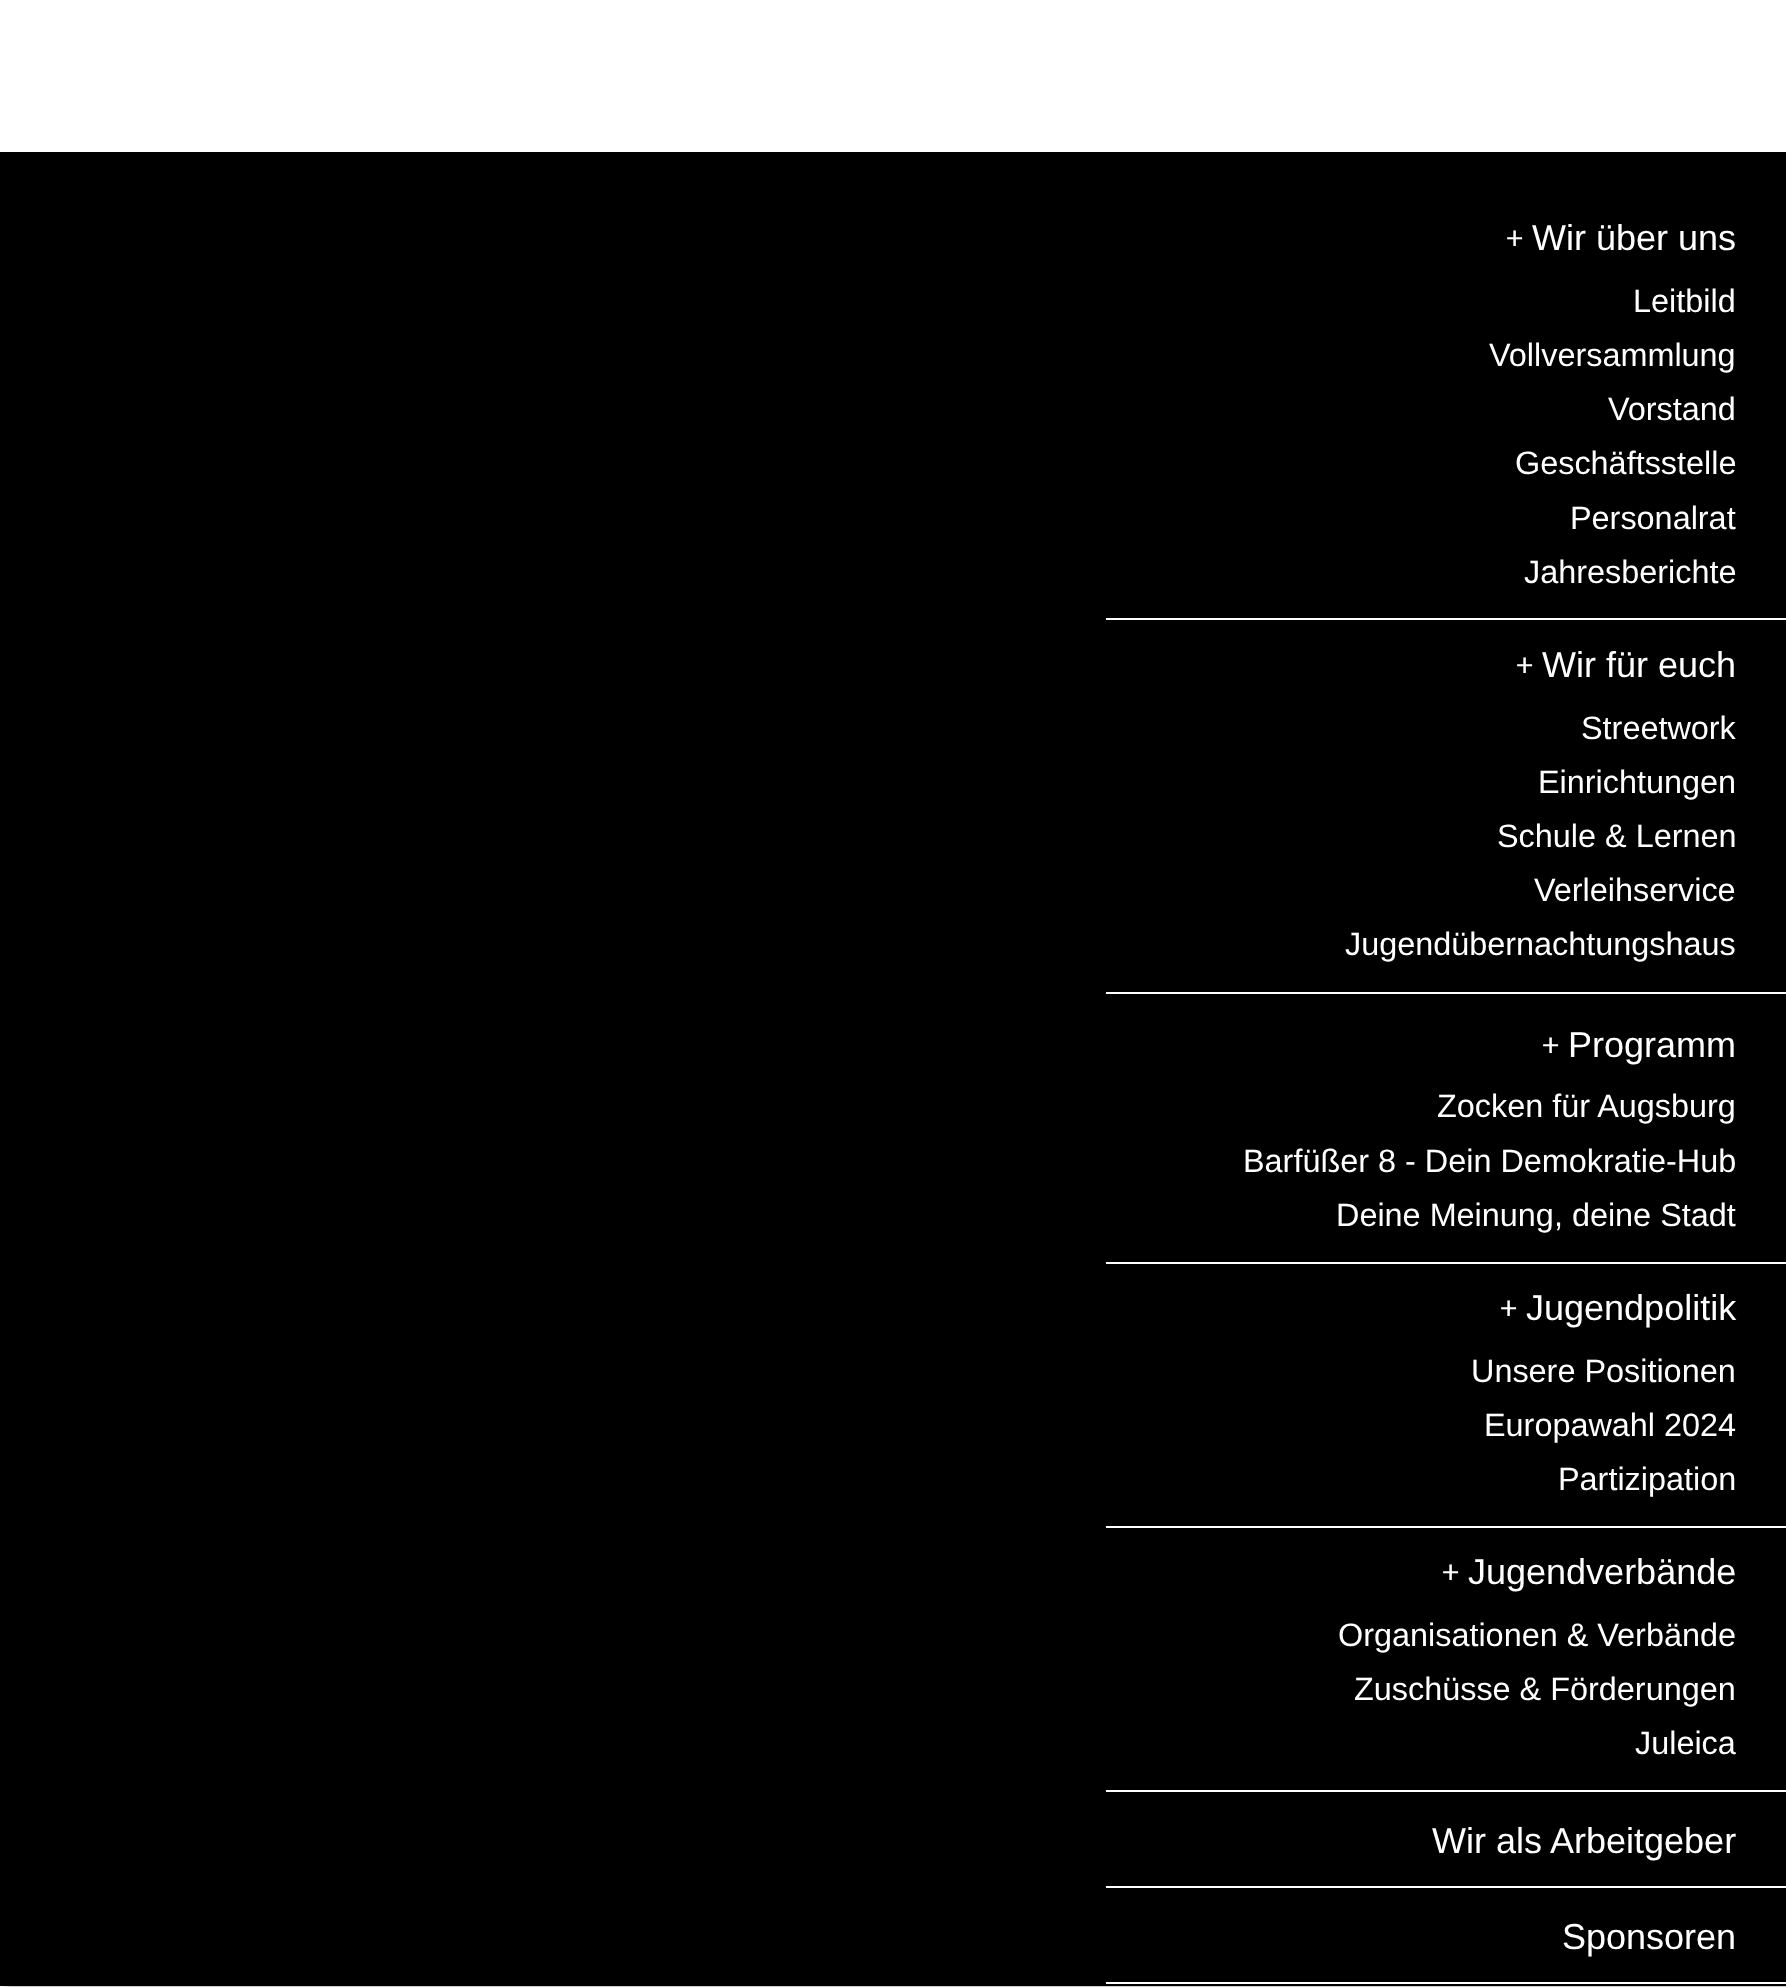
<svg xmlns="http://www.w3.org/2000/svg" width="1786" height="1987">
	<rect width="100%" height="100%" fill="#FFFFFF" />
	<rect x="0" y="152" width="1786" height="2" fill="#000000" />
	<rect x="6" y="160" width="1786" height="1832" fill="#000000" fill-opacity="0.2" filter="blur(3px)" />
	<rect x="0" y="154" width="1786" height="1832" fill="#000000" />
	<text x="1505" y="248" font-family="IBM Plex Sans" font-size="32" fill="#FFFFFF">+</text>
	<text x="1532" y="250" font-family="Liberation Sans" font-size="36" fill="#FFFFFF">Wir über uns</text>
	<g font-family="Liberation Sans" font-size="32.4" fill="#FFFFFF">
		<text x="1633" y="312">Leitbild</text>
		<text x="1489" y="366">Vollversammlung</text>
		<text x="1608" y="420">Vorstand</text>
		<text x="1515" y="474">Geschäftsstelle</text>
		<text x="1570" y="529">Personalrat</text>
		<text x="1524" y="583">Jahresberichte</text>
	</g>
	<rect x="1106" y="618" width="680" height="2" fill="#FFFFFF" />
	<text x="1515" y="675" font-family="IBM Plex Sans" font-size="32" fill="#FFFFFF">+</text>
	<text x="1542" y="677" font-family="Liberation Sans" font-size="36" fill="#FFFFFF">Wir für euch</text>
	<g font-family="Liberation Sans" font-size="32.4" fill="#FFFFFF">
		<text x="1581" y="739">Streetwork</text>
		<text x="1538" y="793">Einrichtungen</text>
		<text x="1497" y="847">Schule &amp; Lernen</text>
		<text x="1534" y="901">Verleihservice</text>
		<text x="1345" y="955">Jugendübernachtungshaus</text>
	</g>
	<rect x="1106" y="992" width="680" height="2" fill="#FFFFFF" />
	<text x="1541" y="1055" font-family="IBM Plex Sans" font-size="32" fill="#FFFFFF">+</text>
	<text x="1568" y="1057" font-family="Liberation Sans" font-size="36" fill="#FFFFFF">Programm</text>
	<g font-family="Liberation Sans" font-size="32.4" fill="#FFFFFF">
		<text x="1437" y="1117">Zocken für Augsburg</text>
		<text x="1243" y="1172">Barfüßer 8 - Dein Demokratie-Hub</text>
		<text x="1336" y="1226">Deine Meinung, deine Stadt</text>
	</g>
	<rect x="1106" y="1262" width="680" height="2" fill="#FFFFFF" />
	<text x="1499" y="1318" font-family="IBM Plex Sans" font-size="32" fill="#FFFFFF">+</text>
	<text x="1526" y="1320" font-family="Liberation Sans" font-size="36" fill="#FFFFFF">Jugendpolitik</text>
	<g font-family="Liberation Sans" font-size="32.4" fill="#FFFFFF">
		<text x="1471" y="1382">Unsere Positionen</text>
		<text x="1484" y="1436">Europawahl 2024</text>
		<text x="1558" y="1490">Partizipation</text>
	</g>
	<rect x="1106" y="1526" width="680" height="2" fill="#FFFFFF" />
	<text x="1441" y="1582" font-family="IBM Plex Sans" font-size="32" fill="#FFFFFF">+</text>
	<text x="1468" y="1584" font-family="Liberation Sans" font-size="36" fill="#FFFFFF">Jugendverbände</text>
	<g font-family="Liberation Sans" font-size="32.4" fill="#FFFFFF">
		<text x="1338" y="1646">Organisationen &amp; Verbände</text>
		<text x="1354" y="1700">Zuschüsse &amp; Förderungen</text>
		<text x="1635" y="1754">Juleica</text>
	</g>
	<rect x="1106" y="1790" width="680" height="2" fill="#FFFFFF" />
	<text x="1432" y="1853" font-family="Liberation Sans" font-size="36" fill="#FFFFFF">Wir als Arbeitgeber</text>
	<rect x="1106" y="1886" width="680" height="2" fill="#FFFFFF" />
	<text x="1562" y="1949" font-family="Liberation Sans" font-size="36" fill="#FFFFFF">Sponsoren</text>
	<rect x="1106" y="1982" width="680" height="2" fill="#FFFFFF" />
</svg>
